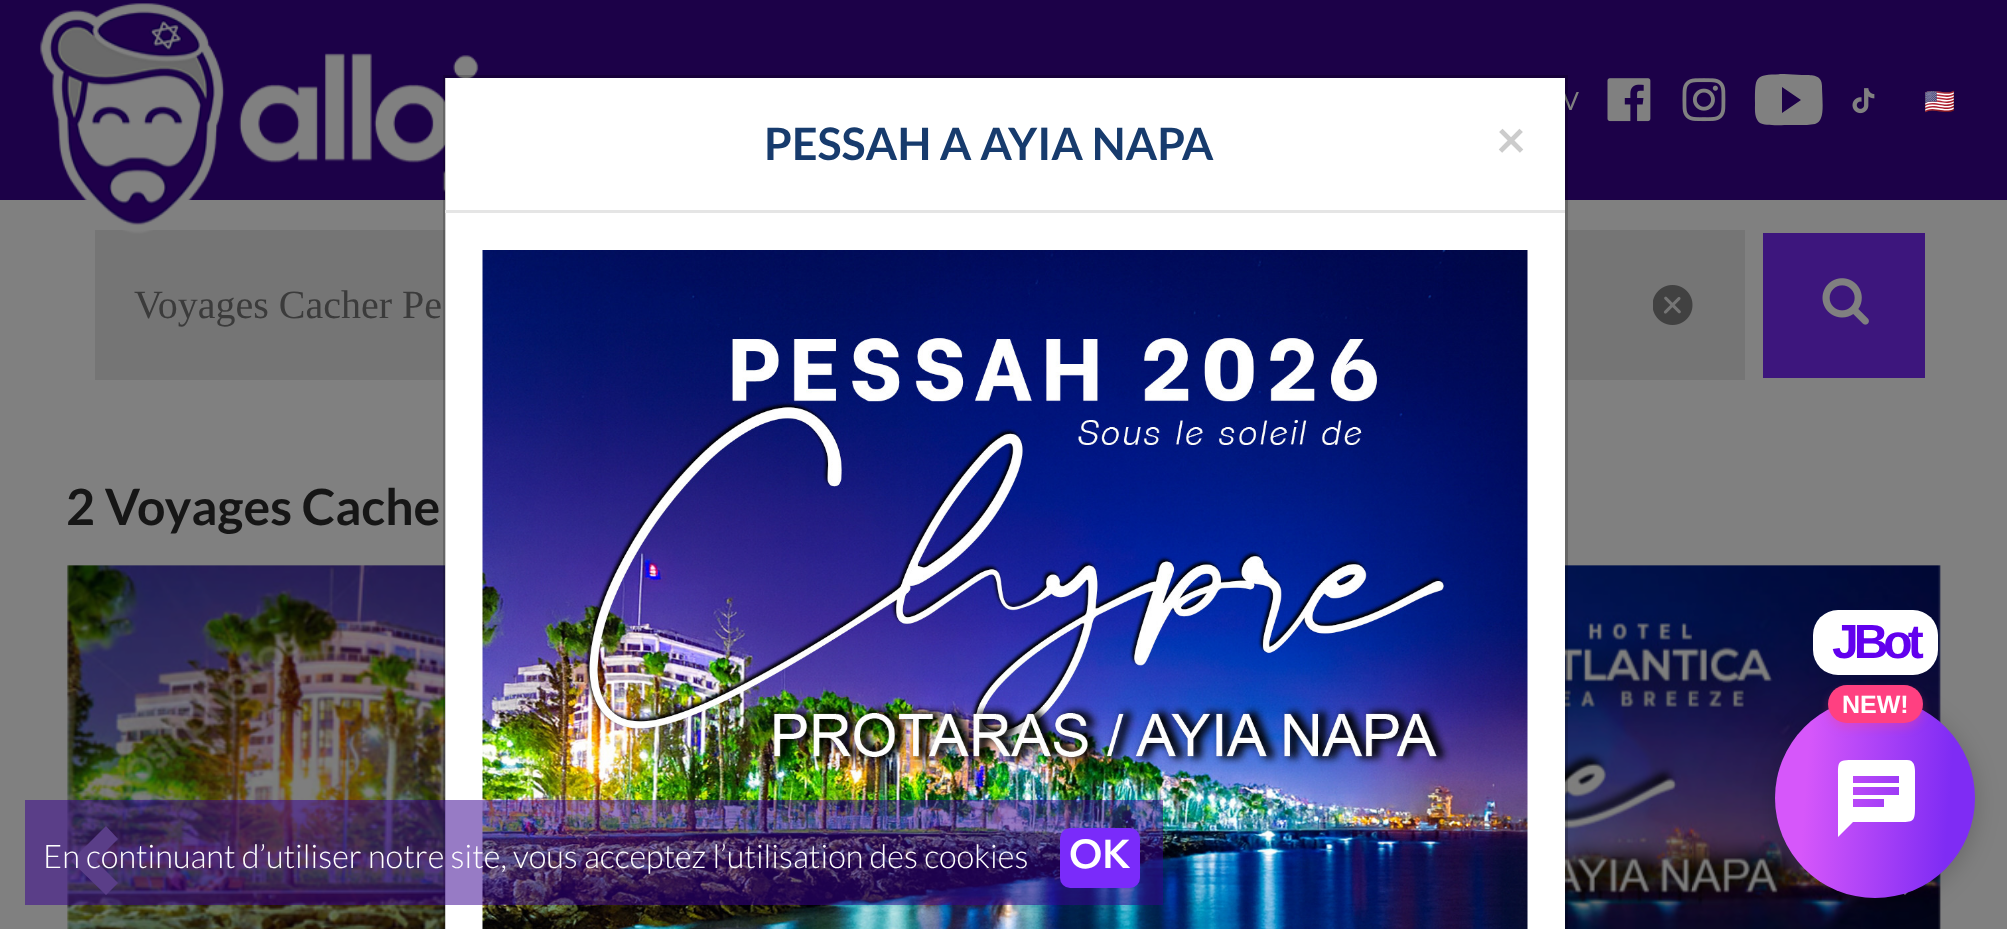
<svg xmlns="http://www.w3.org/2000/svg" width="2007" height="929">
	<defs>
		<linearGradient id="g1" gradientUnits="userSpaceOnUse" x1="1769" y1="790" x2="1981" y2="805"><stop offset="0.17" stop-color="#D657FA" /><stop offset="0.85" stop-color="#7F2CF4" /></linearGradient>
	</defs>
	<rect width="100%" height="100%" fill="#808080" />
	<rect x="0" y="0" width="2007" height="200" fill="#1C0148" />
	<rect x="95" y="230" width="1650" height="150" fill="#757575" />
	<image x="40" y="3" width="439" height="231" href="assets/img1.png" />
	<text x="1562" y="110" font-family="Lato" font-size="25" fill="#808080">V</text>
	<image x="1607" y="78" width="44" height="44" href="assets/img2.png" />
	<image x="1682" y="78" width="44" height="44" href="assets/img3.png" />
	<path d="M1822 86C1822 93 1824 112 1821 118C1820 121 1818 123 1815 124L1807 125H1789C1783 125 1764 126 1760 123C1754 118 1755 110 1755 103C1755 74 1755 75 1784 74L1802 75C1811 75 1822 74 1822 86ZM1782 113L1801 100L1782 87Z" fill="#808080" />
	<image x="1852" y="88" width="23" height="26" href="assets/img4.png" />
	<text x="1924" y="110" font-family="Noto Color Emoji" font-size="25" fill="#808080">🇺🇸</text>
	<image x="67" y="565" width="1874" height="364" href="assets/img8.png" />
	<rect x="445" y="78" width="1120" height="851" fill="#FFFFFF" />
	<rect x="444.5" y="76.5" width="1122" height="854" fill="none" stroke="#000000" stroke-opacity="0.2" stroke-width="3" />
	<rect x="445" y="210" width="1120" height="3" fill="#E5E5E5" />
	<text x="764" y="160" font-family="Lato" font-size="44.75" font-weight="700" fill="#173B6D">PESSAH A AYIA NAPA</text>
	<text x="1496" y="158" font-family="Lato" font-size="52" font-weight="700" fill="#CCCCCC">×</text>
	<image x="482" y="250" width="1046" height="679" href="assets/img5.png" />
	<image x="1653" y="285" width="40" height="40" href="assets/img6.png" />
	<text x="134" y="318" font-family="Liberation Serif" font-size="40" fill="#3B3B3B">Voyages Cacher Pe</text>
	<rect x="1763" y="233" width="162" height="145" fill="#3D167D" />
	<image x="1822" y="278" width="47" height="47" href="assets/img7.png" />
	<text x="66" y="525" font-family="Lato" font-size="50" font-weight="700" fill="#161616">2 Voyages Cache</text>
	<path d="M118 839L96 861L118 883L106 895L71 861L106 826Z" fill="#808080" />
	<path d="M1939 861L1905 895L1892 883L1914 861L1892 839L1905 826Z" fill="#808080" />
	<rect x="1775" y="703" width="200" height="200" rx="100" fill="#000000" fill-opacity="0.2" filter="blur(12.5px)" />
	<circle cx="1875" cy="798" r="100" fill="url(#g1)" />
	<rect x="1813" y="610" width="125" height="65" rx="25" fill="#FFFFFF" />
	<text x="1832" y="658" font-family="Liberation Sans" font-size="48" font-weight="700" letter-spacing="-5" fill="#6200EE">JBot</text>
	<rect x="1828" y="690" width="95" height="38" rx="19" fill="#FF4081" fill-opacity="0.3" filter="blur(5px)" />
	<rect x="1828" y="685" width="95" height="38" rx="19" fill="#FF4081" />
	<text x="1842" y="713" font-family="Liberation Sans" font-size="25" font-weight="700" fill="#FFFFFF">NEW!</text>
	<path d="M1899 783V776H1853V783ZM1884 807V799H1853V807ZM1853 787V795H1899V787ZM1907 760C1916 760 1915 770 1915 776V806C1915 822 1914 822 1898 822H1853L1838 837V779C1838 760 1837 760 1856 760Z" fill="#FFFFFF" />
	<rect x="25" y="800" width="1138" height="105" fill="#38028F" fill-opacity="0.52" />
	<text x="43" y="868" font-family="Lato" font-size="32.5" font-weight="300" fill="#FFFFFF">En continuant d’utiliser notre site, vous acceptez l’utilisation des cookies</text>
	<rect x="1060" y="828" width="80" height="60" rx="10" fill="#7A2BFA" />
	<text x="1069" y="868" font-family="Avenir" font-size="40" font-weight="900" fill="#FFFFFF">OK</text>
</svg>
